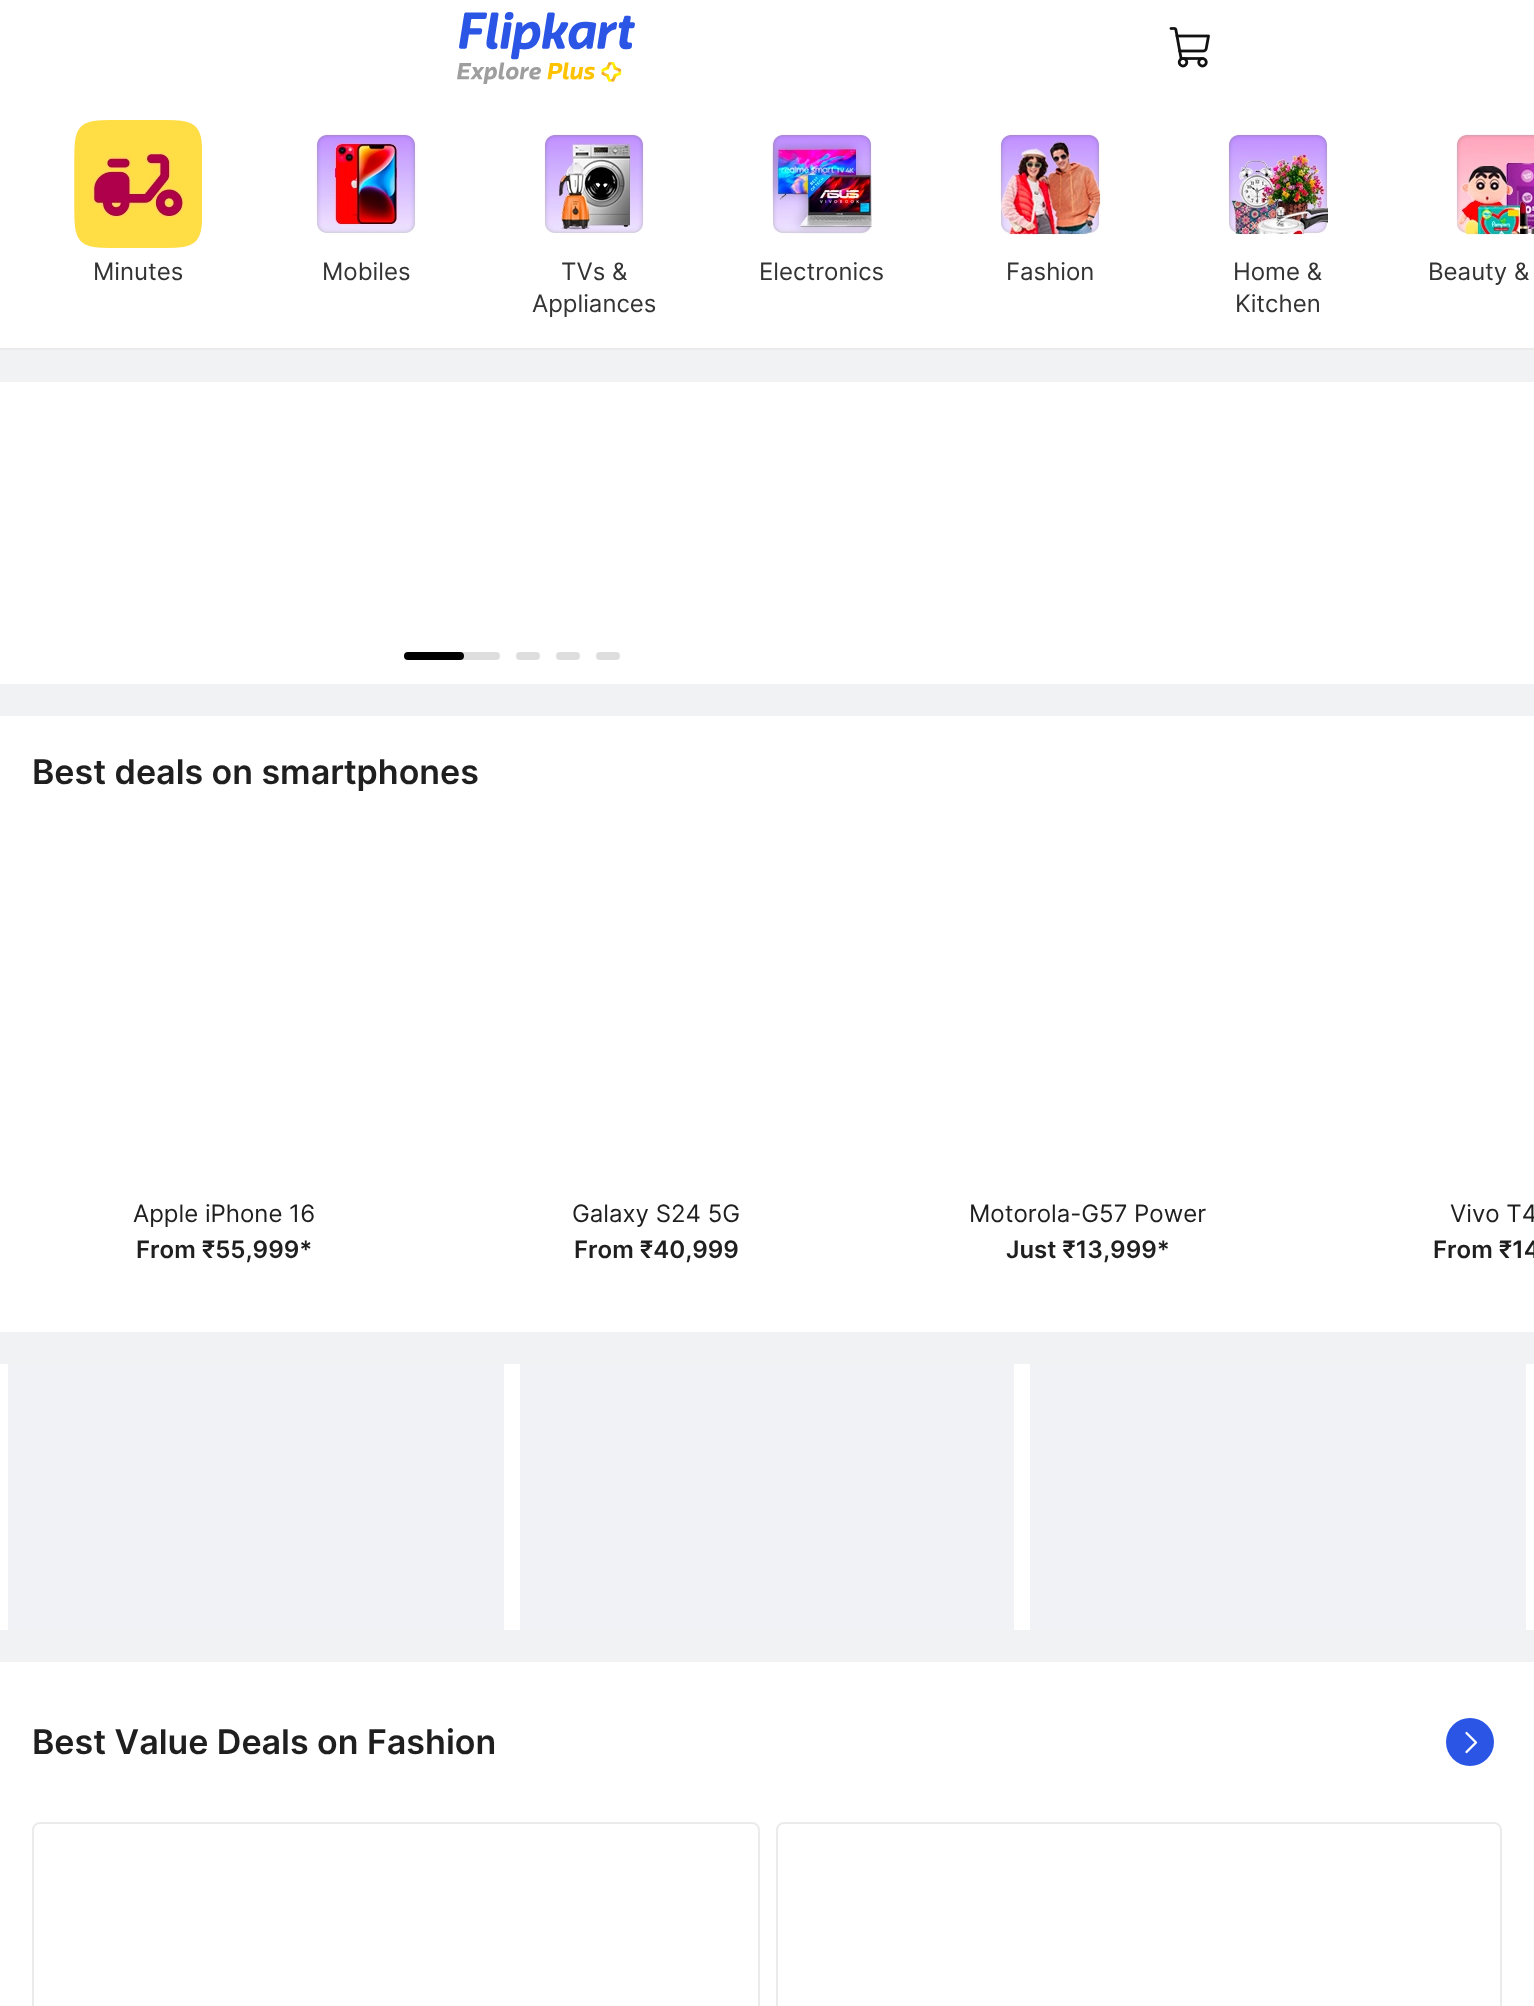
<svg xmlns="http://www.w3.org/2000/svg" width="1534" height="2006">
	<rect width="100%" height="100%" fill="#F1F2F4" />
	<rect x="0" y="0" width="1534" height="348" fill="#FFFFFF" />
	<image x="457" y="12" width="178" height="72" href="assets/img1.png" />
	<image x="1169" y="27" width="41" height="41" href="assets/img2.png" />
	<image x="74" y="120" width="128" height="128" href="assets/img3.png" />
	<text x="93" y="280" font-family="Inter" font-size="24" fill="#333333">Minutes</text>
	<image x="315" y="133" width="102" height="100" href="assets/img4.png" />
	<text x="322" y="280" font-family="Inter" font-size="24" fill="#333333">Mobiles</text>
	<image x="544" y="134" width="101" height="99" href="assets/img5.png" />
	<g font-family="Inter" font-size="24" fill="#333333">
		<text x="561" y="280">TVs &amp;</text>
		<text x="532" y="312">Appliances</text>
	</g>
	<image x="771" y="134" width="101" height="100" href="assets/img6.png" />
	<text x="759" y="280" font-family="Inter" font-size="24" fill="#333333">Electronics</text>
	<image x="999" y="134" width="102" height="101" href="assets/img7.png" />
	<text x="1006" y="280" font-family="Inter" font-size="24" fill="#333333">Fashion</text>
	<image x="1228" y="134" width="100" height="101" href="assets/img8.png" />
	<g font-family="Inter" font-size="24" fill="#333333">
		<text x="1233" y="280">Home &amp;</text>
		<text x="1235" y="312">Kitchen</text>
	</g>
	<image x="1456" y="134" width="78" height="101" href="assets/img9.png" />
	<text x="1428" y="280" font-family="Inter" font-size="24" fill="#333333">Beauty &amp;</text>
	<rect x="0" y="348" width="1534" height="2" fill="#EAEAEA" />
	<rect x="0" y="382" width="1534" height="302" fill="#FFFFFF" />
	<rect x="404" y="652" width="96" height="8" rx="4" fill="#DEDEDE" />
	<rect x="404" y="652" width="60" height="8" rx="4" fill="#000000" />
	<rect x="516" y="652" width="24" height="8" rx="4" fill="#DEDEDE" />
	<rect x="556" y="652" width="24" height="8" rx="4" fill="#DEDEDE" />
	<rect x="596" y="652" width="24" height="8" rx="4" fill="#DEDEDE" />
	<rect x="0" y="716" width="1534" height="616" fill="#FFFFFF" />
	<text x="32" y="784" font-family="Inter" font-size="34" font-weight="600" fill="#1F1F1F">Best deals on smartphones</text>
	<text x="133" y="1222" font-family="Inter" font-size="24" fill="#1F1F1F">Apple iPhone 16</text>
	<text x="136" y="1258" font-family="Inter" font-size="24" font-weight="600" fill="#1F1F1F">From ₹55,999*</text>
	<text x="572" y="1222" font-family="Inter" font-size="24" fill="#1F1F1F">Galaxy S24 5G</text>
	<text x="574" y="1258" font-family="Inter" font-size="24" font-weight="600" fill="#1F1F1F">From ₹40,999</text>
	<text x="969" y="1222" font-family="Inter" font-size="24" fill="#1F1F1F">Motorola-G57 Power</text>
	<text x="1006" y="1258" font-family="Inter" font-size="24" font-weight="600" fill="#1F1F1F">Just ₹13,999*</text>
	<text x="1450" y="1222" font-family="Inter" font-size="24" fill="#1F1F1F">Vivo T4</text>
	<text x="1433" y="1258" font-family="Inter" font-size="24" font-weight="600" fill="#1F1F1F">From ₹14</text>
	<rect x="0" y="1364" width="1534" height="266" fill="#FFFFFF" />
	<rect x="8" y="1364" width="496" height="266" fill="#F0F2F5" />
	<rect x="520" y="1364" width="494" height="266" fill="#F0F2F5" />
	<rect x="1030" y="1364" width="496" height="266" fill="#F0F2F5" />
	<rect x="0" y="1662" width="1534" height="344" fill="#FFFFFF" />
	<text x="32" y="1754" font-family="Inter" font-size="34" font-weight="600" fill="#1F1F1F">Best Value Deals on Fashion</text>
	<circle cx="1470" cy="1742" r="24" fill="#2A55E5" />
	<path d="M1466.5 1733L1476 1742.5L1466.5 1752" fill="none" stroke="#FFFFFF" stroke-width="2.3" stroke-linecap="round" stroke-linejoin="round" />
	<rect x="33" y="1823" width="726" height="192" rx="7" fill="none" stroke="#EBEBEB" stroke-width="2" />
	<rect x="777" y="1823" width="724" height="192" rx="7" fill="none" stroke="#EBEBEB" stroke-width="2" />
</svg>
